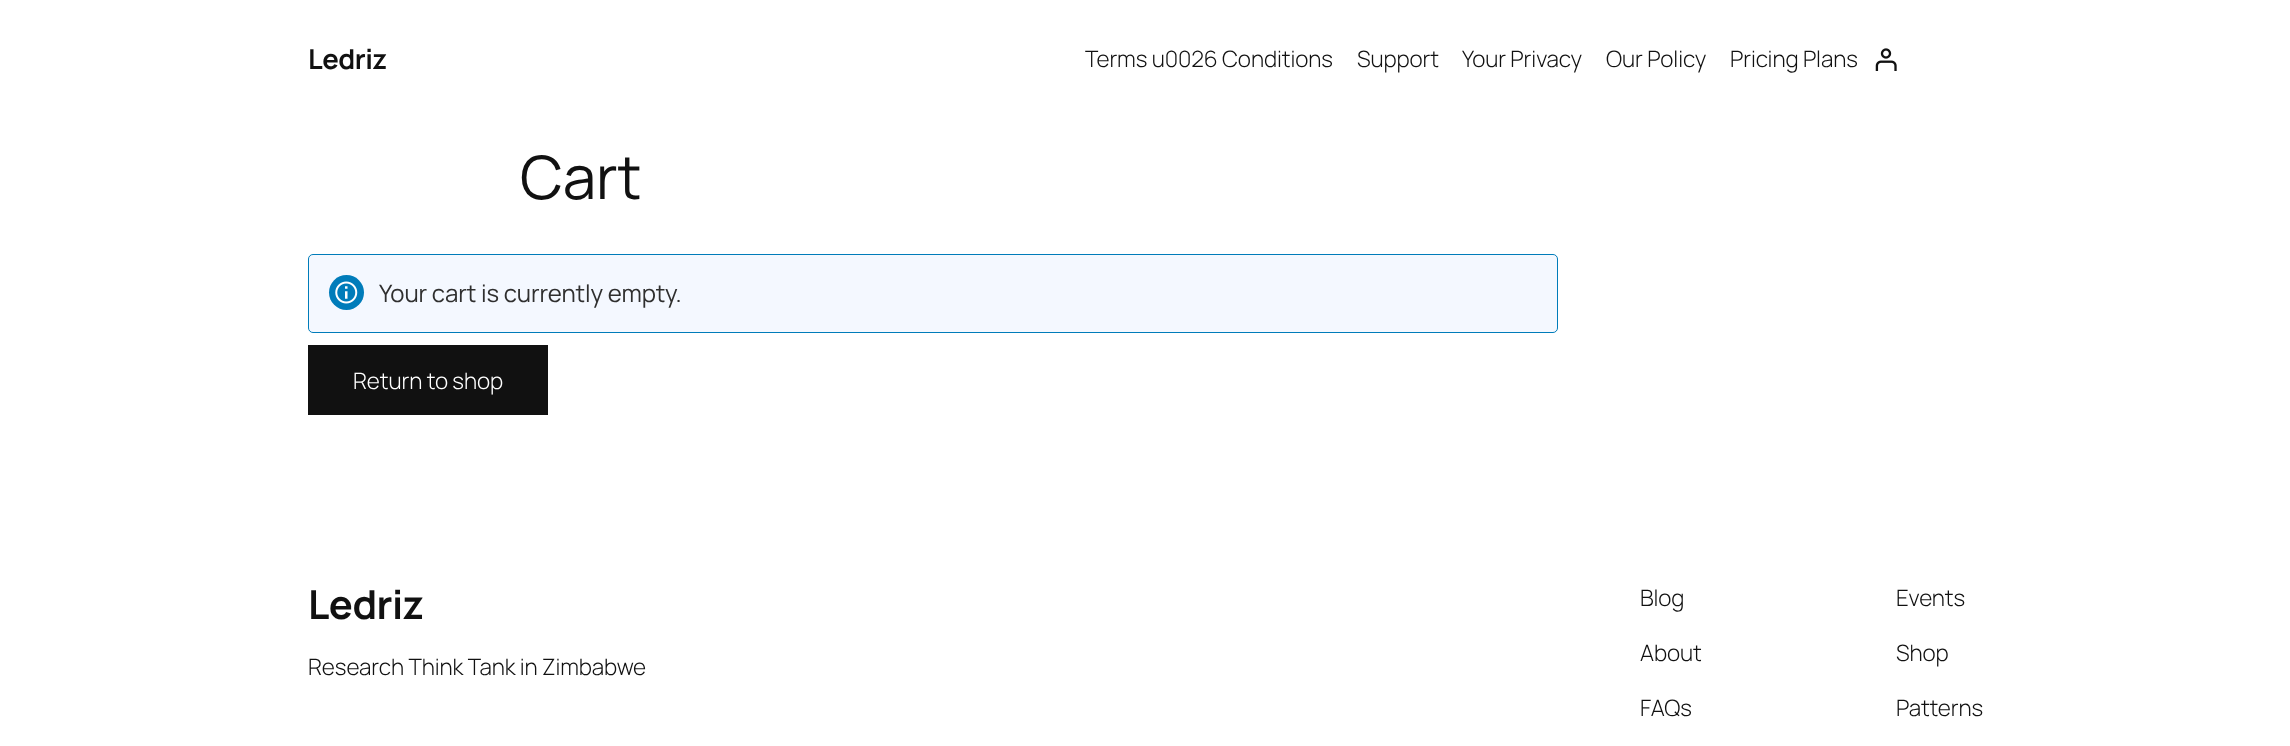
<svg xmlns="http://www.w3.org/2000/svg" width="2290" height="746">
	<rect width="100%" height="100%" fill="#FFFFFF" />
	<text x="308" y="69" font-family="Manrope" font-size="27.5" font-weight="700" letter-spacing="-0.5" fill="#111111">Ledriz</text>
	<g font-family="Manrope" font-size="22.5" font-weight="300" letter-spacing="-0.1" fill="#111111">
		<text x="1085" y="67">Terms u0026 Conditions</text>
		<text x="1357" y="67">Support</text>
		<text x="1462" y="67">Your Privacy</text>
		<text x="1606" y="67">Our Policy</text>
		<text x="1730" y="67">Pricing Plans</text>
	</g>
	<image x="1875" y="48" width="22" height="23" href="assets/img1.png" />
	<text x="520" y="199" font-family="Manrope" font-size="60" letter-spacing="-0.1" fill="#111111">Cart</text>
	<rect x="308.5" y="254.5" width="1249" height="78" rx="4.5" fill="#F4F8FF" stroke="#007CBA" />
	<circle cx="346.5" cy="292.5" r="17.5" fill="#007CBA" />
	<image x="335" y="281" width="23" height="23" href="assets/img2.png" />
	<text x="379" y="302" font-family="Manrope" font-size="24" letter-spacing="-0.1" fill="#2F2F2F">Your cart is currently empty.</text>
	<rect x="308" y="345" width="240" height="70" fill="#111111" />
	<text x="353" y="389" font-family="Manrope" font-size="22.5" font-weight="300" letter-spacing="-0.1" fill="#FFFFFF">Return to shop</text>
	<text x="308" y="619" font-family="Manrope" font-size="40" font-weight="700" letter-spacing="-0.5" fill="#111111">Ledriz</text>
	<g font-family="Manrope" font-size="22.5" font-weight="300" letter-spacing="-0.1" fill="#111111">
		<text x="308" y="675">Research Think Tank in Zimbabwe</text>
		<text x="1640" y="606">Blog</text>
		<text x="1640" y="661">About</text>
		<text x="1640" y="716">FAQs</text>
		<text x="1896" y="606">Events</text>
		<text x="1896" y="661">Shop</text>
		<text x="1896" y="716">Patterns</text>
	</g>
</svg>
